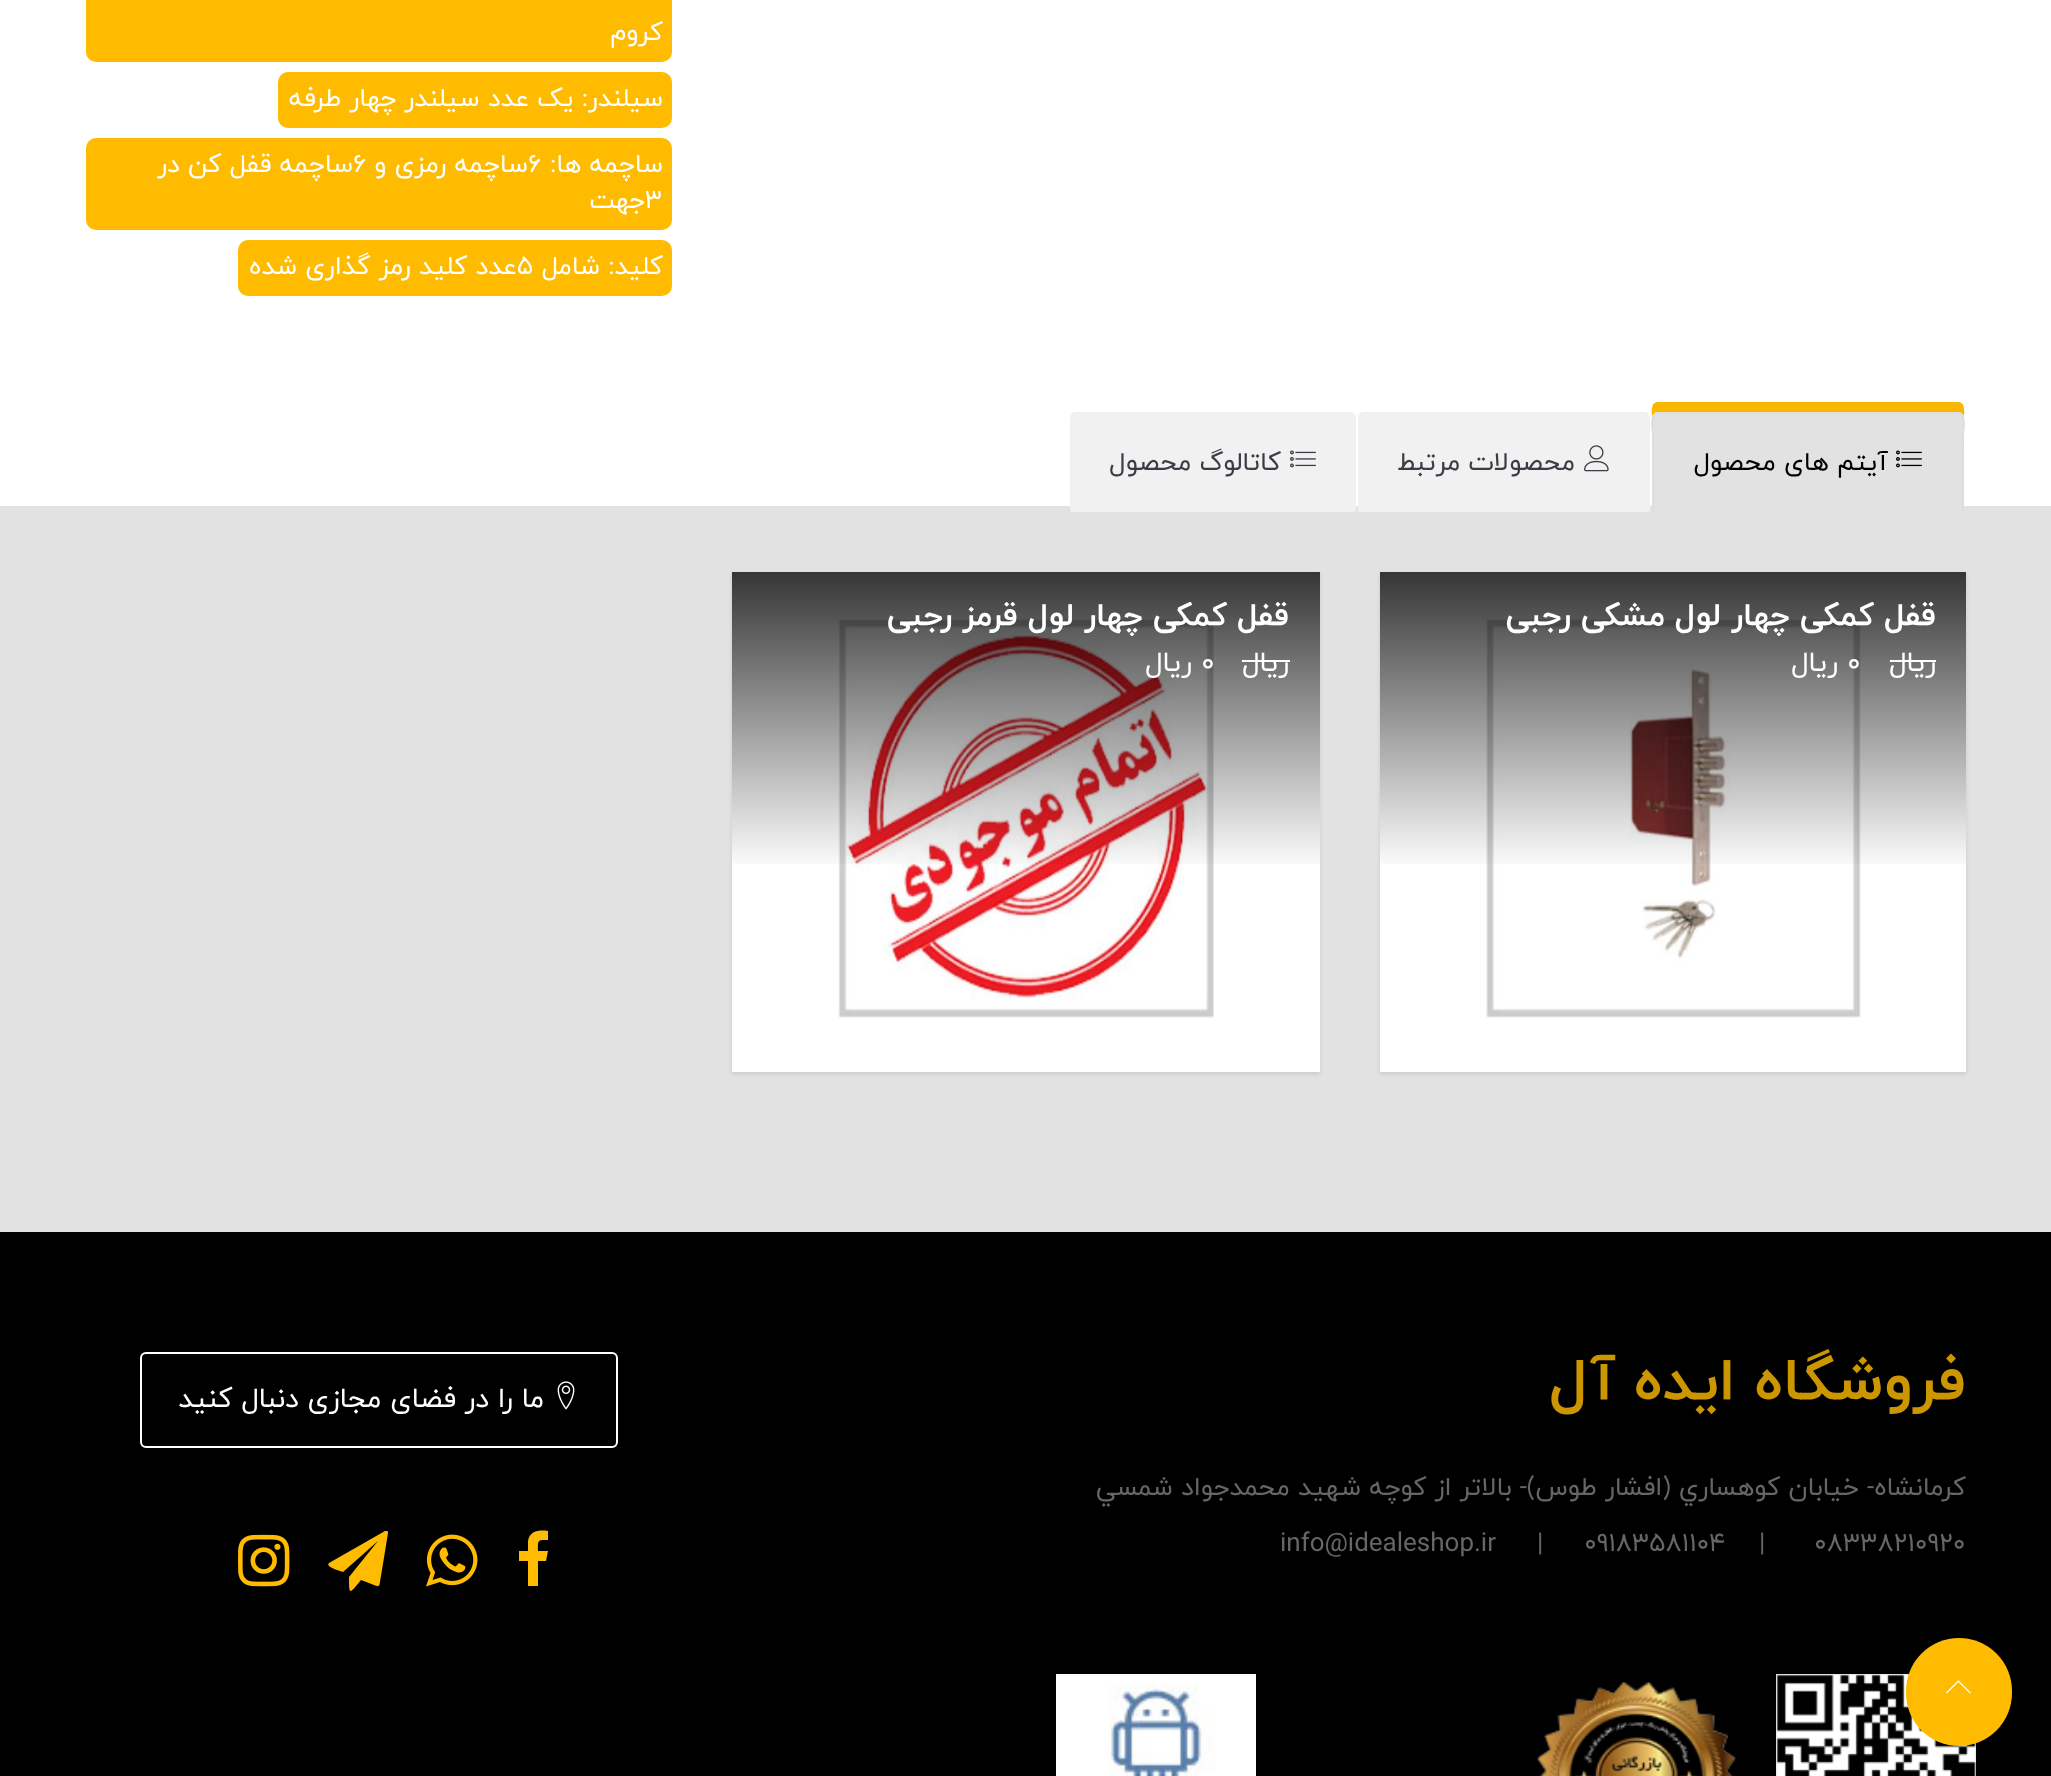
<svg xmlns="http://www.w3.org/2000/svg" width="2051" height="1776">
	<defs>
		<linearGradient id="g1" gradientUnits="userSpaceOnUse" x1="1673" y1="572" x2="1673" y2="872"><stop offset="0" stop-color="#000000" stop-opacity="0.79" /><stop offset="1" stop-color="#000000" stop-opacity="0" /></linearGradient>
		<clipPath id="clip1"><rect x="1410" y="602" width="526" height="34" /></clipPath>
		<linearGradient id="g2" gradientUnits="userSpaceOnUse" x1="1026" y1="572" x2="1026" y2="872"><stop offset="0" stop-color="#000000" stop-opacity="0.79" /><stop offset="1" stop-color="#000000" stop-opacity="0" /></linearGradient>
		<clipPath id="clip2"><rect x="762" y="602" width="528" height="34" /></clipPath>
	</defs>
	<rect width="100%" height="100%" fill="#FFFFFF" />
	<rect x="86" y="-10" width="586" height="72" rx="10" fill="#FFBB00" />
	<text x="663" y="40" font-family="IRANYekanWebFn" font-size="26" direction="rtl" fill="#FFFFFF">کروم</text>
	<rect x="278" y="72" width="394" height="56" rx="10" fill="#FFBB00" />
	<text x="663" y="106" font-family="IRANYekanWebFn" font-size="26" direction="rtl" fill="#FFFFFF">سیلندر: یک عدد سیلندر چهار طرفه</text>
	<rect x="86" y="138" width="586" height="92" rx="10" fill="#FFBB00" />
	<text x="663" y="172" font-family="IRANYekanWebFn" font-size="26" direction="rtl" fill="#FFFFFF">ساچمه ها:</text>
	<text x="528" y="172" font-family="IRANYekanWebFn" font-size="26" fill="#FFFFFF">6</text>
	<text x="528" y="172" font-family="IRANYekanWebFn" font-size="26" direction="rtl" fill="#FFFFFF">ساچمه رمزی و</text>
	<text x="353" y="172" font-family="IRANYekanWebFn" font-size="26" fill="#FFFFFF">6</text>
	<text x="353" y="172" font-family="IRANYekanWebFn" font-size="26" direction="rtl" fill="#FFFFFF">ساچمه قفل کن در</text>
	<text x="645" y="208" font-family="IRANYekanWebFn" font-size="26" fill="#FFFFFF">3</text>
	<text x="645" y="208" font-family="IRANYekanWebFn" font-size="26" direction="rtl" fill="#FFFFFF">جهت</text>
	<rect x="238" y="240" width="434" height="56" rx="10" fill="#FFBB00" />
	<text x="663" y="274" font-family="IRANYekanWebFn" font-size="26" direction="rtl" fill="#FFFFFF">کلید: شامل</text>
	<text x="517" y="274" font-family="IRANYekanWebFn" font-size="26" fill="#FFFFFF">5</text>
	<text x="517" y="274" font-family="IRANYekanWebFn" font-size="26" direction="rtl" fill="#FFFFFF">عدد کلید رمز گذاری شده</text>
	<rect x="0" y="506" width="2051" height="726" fill="#E2E2E2" />
	<path d="M1658 402C1650 402 1652 413 1652 418C1652 415 1655 412 1658 412H1958C1961 412 1964 415 1964 418C1964 413 1966 402 1958 402Z" fill="#FBB700" />
	<path d="M1658 412H1958C1961.5 412 1964 414.5 1964 418V512C1964 513 1963 514 1962 514H1654C1653 514 1652 513 1652 512V418C1652 414.5 1654.5 412 1658 412Z" fill="#E2E2E2" />
	<path d="M1653.5 512.5L1653 433.5C1653 432.5 1649 413 1658 413H1958C1967 413 1963 432.5 1963 433.5L1962.5 512.5" fill="none" stroke="#DDDDDD" stroke-width="2" />
	<image x="1896" y="450" width="26" height="18" href="assets/img1.png" />
	<text x="1888" y="470" font-family="IRANYekanWebFn" font-size="26" direction="rtl" fill="#000000">آیتم های محصول</text>
	<path d="M1364 412H1644C1647.5 412 1650 414.5 1650 418V510C1650 511 1649 512 1648 512H1360C1359 512 1358 511 1358 510V418C1358 414.5 1360.5 412 1364 412Z" fill="#F1F1F1" />
	<image x="1584" y="445" width="25" height="27" href="assets/img2.png" />
	<text x="1575" y="470" font-family="IRANYekanWebFn" font-size="26" direction="rtl" fill="#3A3D45">محصولات مرتبط</text>
	<path d="M1076 412H1350C1353.5 412 1356 414.5 1356 418V510C1356 511 1355 512 1354 512H1072C1071 512 1070 511 1070 510V418C1070 414.5 1072.5 412 1076 412Z" fill="#F1F1F1" />
	<image x="1290" y="450" width="26" height="18" href="assets/img3.png" />
	<text x="1281" y="470" font-family="IRANYekanWebFn" font-size="26" direction="rtl" fill="#3A3D45">کاتالوگ محصول</text>
	<rect x="1380" y="574" width="586" height="500" fill="#000000" fill-opacity="0.1" filter="blur(2px)" />
	<rect x="1380" y="572" width="586" height="500" fill="#FFFFFF" />
	<image x="1486" y="619" width="375" height="399" href="assets/img4.png" />
	<rect x="1380" y="572" width="586" height="292" fill="url(#g1)" />
	<g clip-path="url(#clip1)">
		<text x="1936" y="625" font-family="IRANYekanWebFn" font-size="32" font-weight="700" direction="rtl" fill="#FFFFFF">قفل کمکی چهار لول مشکی رجبی</text>
	</g>
	<text x="1936" y="671" font-family="IRANYekanWebFn" font-size="28" direction="rtl" fill="#FFFFFF">ریال</text>
	<rect x="1890" y="660" width="46" height="2" fill="#FFFFFF" />
	<text x="1847" y="671" font-family="IRANYekanWebFn" font-size="28" fill="#FFFFFF">0</text>
	<text x="1838" y="671" font-family="IRANYekanWebFn" font-size="28" direction="rtl" fill="#FFFFFF">ریال</text>
	<rect x="732" y="574" width="588" height="500" fill="#000000" fill-opacity="0.1" filter="blur(2px)" />
	<rect x="732" y="572" width="588" height="500" fill="#FFFFFF" />
	<image x="838" y="619" width="376" height="399" href="assets/img5.png" />
	<rect x="732" y="572" width="588" height="292" fill="url(#g2)" />
	<g clip-path="url(#clip2)">
		<text x="1289" y="625" font-family="IRANYekanWebFn" font-size="32" font-weight="700" direction="rtl" fill="#FFFFFF">قفل کمکی چهار لول قرمز رجبی</text>
	</g>
	<text x="1289" y="671" font-family="IRANYekanWebFn" font-size="28" direction="rtl" fill="#FFFFFF">ریال</text>
	<rect x="1242" y="660" width="48" height="2" fill="#FFFFFF" />
	<text x="1201" y="671" font-family="IRANYekanWebFn" font-size="28" fill="#FFFFFF">0</text>
	<text x="1192" y="671" font-family="IRANYekanWebFn" font-size="28" direction="rtl" fill="#FFFFFF">ریال</text>
	<rect x="0" y="1232" width="2051" height="544" fill="#000000" />
	<text x="1966" y="1399" font-family="IRANYekanWebFn" font-size="60" font-weight="700" direction="rtl" fill="#CC9600">فروشگاه ایده آل</text>
	<text x="1966" y="1495" font-family="IRANYekanWebFn" font-size="26" direction="rtl" fill="#666666">کرمانشاه- خيابان کوهساري (افشار طوس)- بالاتر از کوچه شهيد محمدجواد شمسي</text>
	<g font-family="IRANYekanWebFn" font-size="26" fill="#666666">
		<text x="1814" y="1551">08338210920</text>
		<text x="1759" y="1551">|</text>
		<text x="1584" y="1551">09183581104</text>
		<text x="1537" y="1551">|</text>
		<text x="1280" y="1551">info@idealeshop.ir</text>
	</g>
	<rect x="141" y="1353" width="476" height="94" rx="5" fill="none" stroke="#FFFFFF" stroke-width="2" />
	<image x="557" y="1381" width="18" height="29" href="assets/img6.png" />
	<text x="544" y="1407" font-family="IRANYekanWebFn" font-size="28" direction="rtl" fill="#FFFFFF">ما را در فضای مجازی دنبال کنید</text>
	<path d="M548 1531V1540C537 1540 538 1540 538 1551H548L546 1561H538V1586H528V1561H519V1551H528V1541C530 1530 540 1530 548 1531Z" fill="#FFBB00" />
	<image x="426" y="1534" width="52" height="53" href="assets/img7.png" />
	<path d="M387 1531C388 1531 388 1532 388 1533L381 1576C379 1585 381 1588 374 1585L361 1580C349 1595 349 1595 349 1577L378 1541L343 1572L334 1569C333 1568 326 1566 329 1563L385 1531Z" fill="#FFBB00" />
	<image x="238" y="1534" width="52" height="53" href="assets/img8.png" />
	<image x="1776" y="1674" width="200" height="102" href="assets/img9.png" />
	<image x="1537" y="1682" width="199" height="94" href="assets/img10.png" />
	<image x="1056" y="1674" width="200" height="102" href="assets/img11.png" />
	<rect x="1906" y="1638" width="106" height="108" rx="53" fill="#FFBB00" />
	<image x="1946" y="1680" width="25" height="14" href="assets/img12.png" />
</svg>
